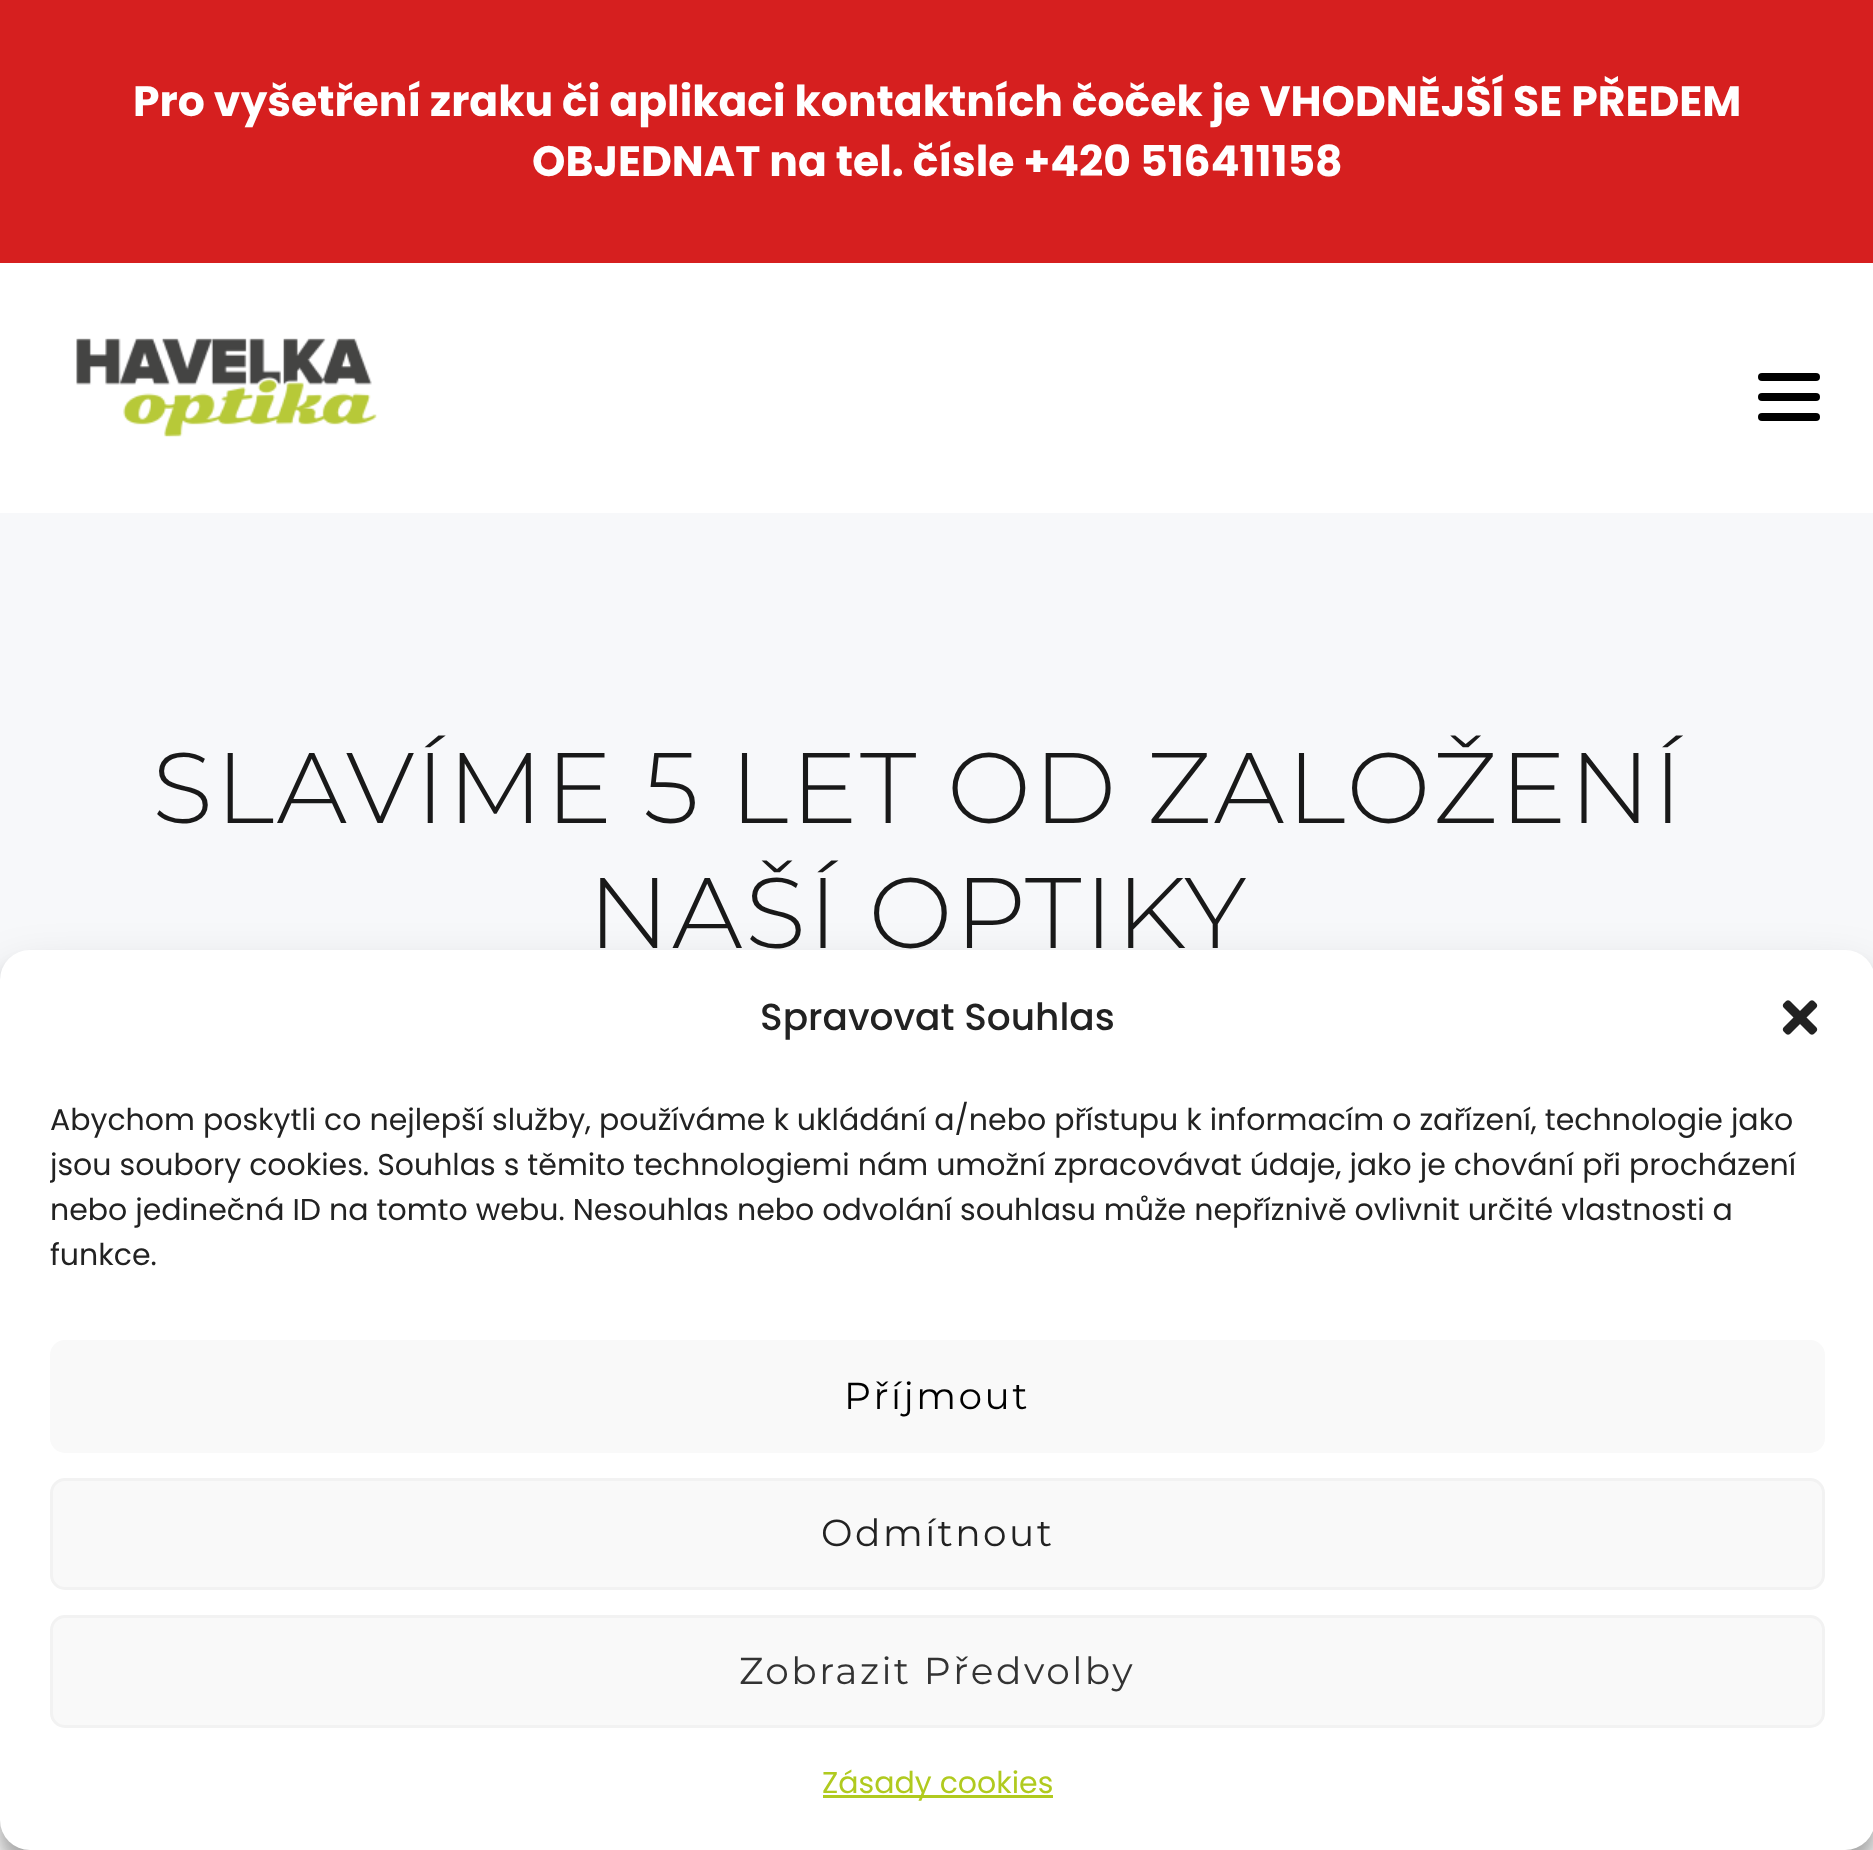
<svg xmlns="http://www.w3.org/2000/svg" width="1873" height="1850">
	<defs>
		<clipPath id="clip1"><rect x="50" y="1098" width="1775" height="192" /></clipPath>
	</defs>
	<rect width="100%" height="100%" fill="#FFFFFF" />
	<rect x="0" y="0" width="1873" height="263" fill="#D61F1F" />
	<g font-family="Poppins" font-size="42.5" font-weight="700" fill="#FFFFFF">
		<text x="133" y="116">Pro vyšetření zraku či aplikaci kontaktních čoček je VHODNĚJŠÍ SE PŘEDEM</text>
		<text x="532" y="176">OBJEDNAT na tel. čísle +420 516411158</text>
	</g>
	<image x="76" y="338" width="301" height="99" href="assets/img1.png" />
	<rect x="1758" y="393" width="62" height="8" rx="4" fill="#000000" />
	<rect x="1758" y="373" width="62" height="8" rx="4" fill="#000000" />
	<rect x="1758" y="413" width="62" height="8" rx="4" fill="#000000" />
	<rect x="0" y="513" width="1873" height="467" fill="#F7F8FA" />
	<g font-family="Montserrat" font-size="100" font-weight="300" letter-spacing="2.5" fill="#191919">
		<text x="152" y="823">SLAVÍME 5 LET OD ZALOŽENÍ</text>
		<text x="588" y="948">NAŠÍ OPTIKY</text>
	</g>
	<rect x="0" y="965" width="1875" height="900" rx="30" fill="#000000" fill-opacity="0.23" filter="blur(7.5px)" />
	<rect x="0" y="975" width="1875" height="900" rx="30" fill="#000000" fill-opacity="0.19" filter="blur(25px)" />
	<rect x="0" y="950" width="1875" height="900" rx="30" fill="#FFFFFF" />
	<text x="760" y="1030" font-family="Poppins" font-size="37.5" font-weight="500" fill="#222222">Spravovat Souhlas</text>
	<image x="1782" y="1000" width="36" height="35" href="assets/img2.png" />
	<text x="50" y="1130" font-family="Poppins" font-size="30" fill="#222222">Abychom poskytli co nejlepší služby, používáme k ukládání a/nebo přístupu k informacím o zařízení, technologie jako</text>
	<g clip-path="url(#clip1)">
		<text x="50" y="1175" font-family="Poppins" font-size="30" fill="#222222">jsou soubory cookies. Souhlas s těmito technologiemi nám umožní zpracovávat údaje, jako je chování při procházení</text>
	</g>
	<g font-family="Poppins" font-size="30" fill="#222222">
		<text x="50" y="1220">nebo jedinečná ID na tomto webu. Nesouhlas nebo odvolání souhlasu může nepříznivě ovlivnit určité vlastnosti a</text>
		<text x="50" y="1265">funkce.</text>
	</g>
	<rect x="50" y="1340" width="1775" height="113" rx="15" fill="#F9F9F9" />
	<text x="844" y="1409" font-family="Montserrat" font-size="37.5" letter-spacing="2.5" fill="#000000">Příjmout</text>
	<rect x="51.5" y="1479.5" width="1772" height="109" rx="13.5" fill="#F9F9F9" stroke="#F2F2F2" stroke-width="3" />
	<text x="821" y="1546" font-family="Montserrat" font-size="37.5" letter-spacing="2.5" fill="#222222">Odmítnout</text>
	<rect x="51.5" y="1616.5" width="1772" height="110" rx="13.5" fill="#F9F9F9" stroke="#F2F2F2" stroke-width="3" />
	<text x="739" y="1684" font-family="Montserrat" font-size="37.5" letter-spacing="2.5" fill="#333333">Zobrazit Předvolby</text>
	<rect x="823" y="1795" width="230" height="3" fill="#B0CA1F" />
	<text x="822" y="1793" font-family="Poppins" font-size="30" fill="#B0CA1F">Zásady cookies</text>
</svg>
